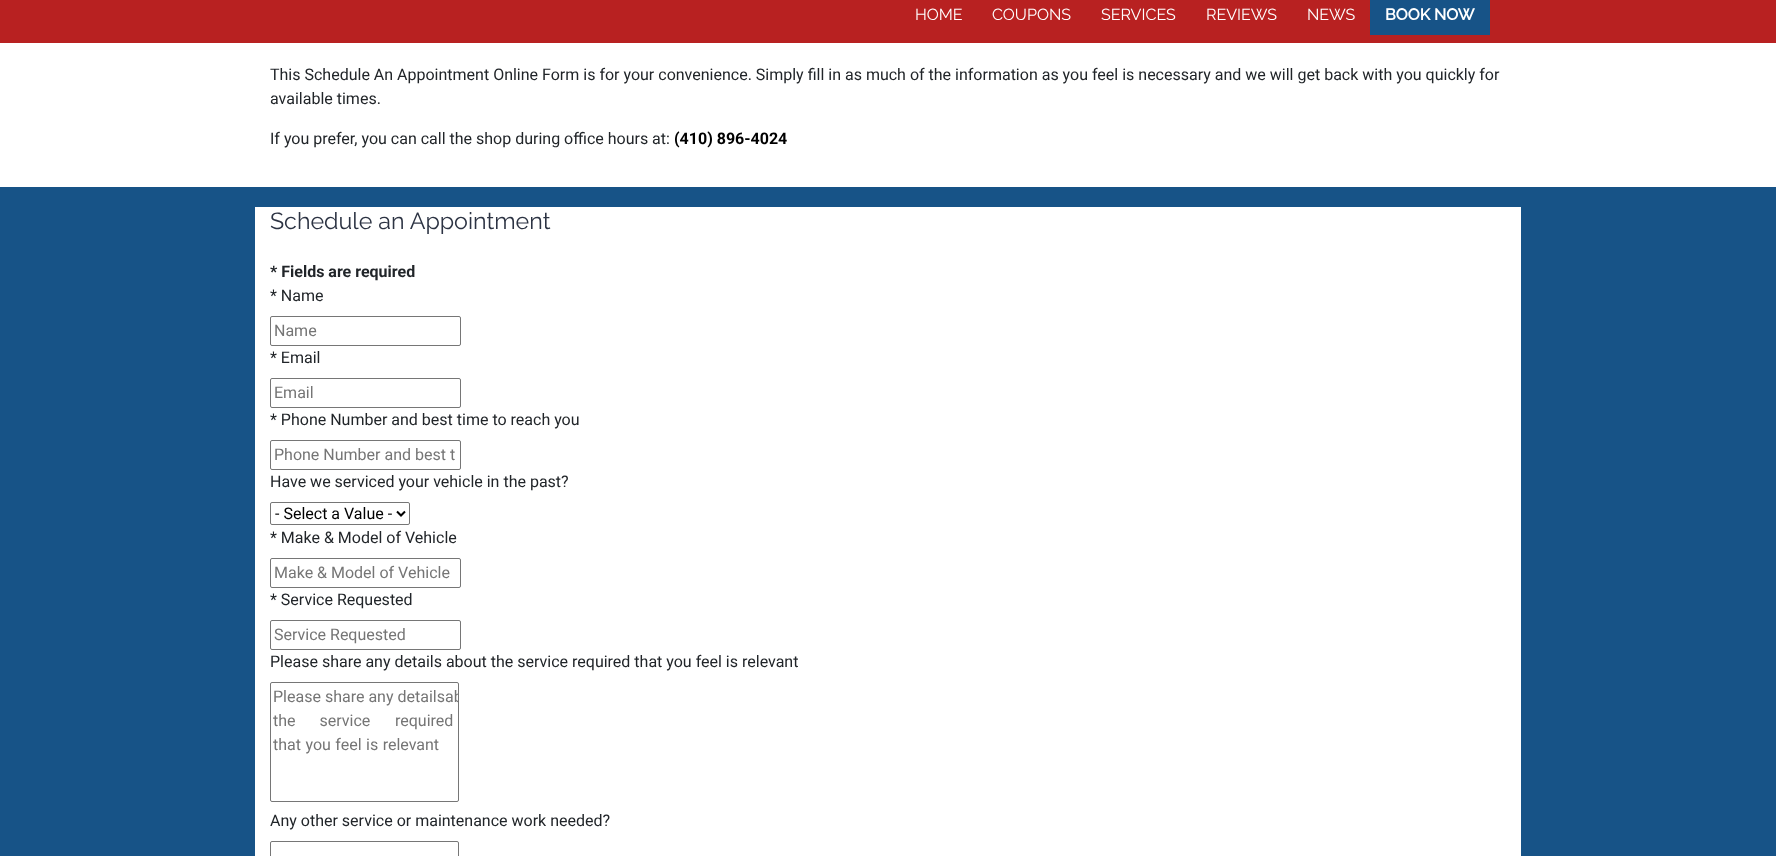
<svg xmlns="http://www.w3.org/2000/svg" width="1776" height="856">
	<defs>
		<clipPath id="clip1"><rect x="271" y="683" width="187" height="118" /></clipPath>
	</defs>
	<rect width="100%" height="100%" fill="#B82121" />
	<g font-family="Raleway" font-size="16" fill="#FFFFFF">
		<text x="915" y="20">HOME</text>
		<text x="992" y="20">COUPONS</text>
		<text x="1101" y="20">SERVICES</text>
		<text x="1206" y="20">REVIEWS</text>
		<text x="1307" y="20">NEWS</text>
	</g>
	<rect x="1370" y="0" width="120" height="35" fill="#175387" />
	<text x="1385" y="20" font-family="Raleway" font-size="16" font-weight="700" fill="#FFFFFF">BOOK NOW</text>
	<rect x="0" y="43" width="1776" height="144" fill="#FFFFFF" />
	<g font-family="Roboto" font-size="16" fill="#212529">
		<text x="270" y="80">This Schedule An Appointment Online Form is for your convenience. Simply fill in as much of the information as you feel is necessary and we will get back with you quickly for</text>
		<text x="270" y="104">available times.</text>
		<text x="270" y="144">If you prefer, you can call the shop during office hours at:</text>
	</g>
	<text x="674" y="144" font-family="Roboto" font-size="16" font-weight="700" fill="#000000">(410) 896-4024</text>
	<rect x="0" y="187" width="1776" height="669" fill="#175387" />
	<rect x="255" y="207" width="1266" height="649" fill="#FFFFFF" />
	<text x="270" y="229" font-family="Raleway" font-size="23.25" fill="#2C3343">Schedule an Appointment</text>
	<text x="270" y="277" font-family="Roboto" font-size="16" font-weight="700" fill="#212529">* Fields are required</text>
	<text x="270" y="301" font-family="Roboto" font-size="16" fill="#212529">* Name</text>
	<rect x="270.5" y="316.5" width="190" height="29" rx="1.5" fill="none" stroke="#767676" />
	<text x="274" y="336" font-family="Roboto" font-size="16" fill="#757575">Name</text>
	<text x="270" y="363" font-family="Roboto" font-size="16" fill="#212529">* Email</text>
	<rect x="270.5" y="378.5" width="190" height="29" rx="1.5" fill="none" stroke="#767676" />
	<text x="274" y="398" font-family="Roboto" font-size="16" fill="#757575">Email</text>
	<text x="270" y="425" font-family="Roboto" font-size="16" fill="#212529">* Phone Number and best time to reach you</text>
	<rect x="270.5" y="440.5" width="190" height="29" rx="1.5" fill="none" stroke="#767676" />
	<text x="274" y="460" font-family="Roboto" font-size="16" fill="#757575">Phone Number and best t</text>
	<text x="270" y="487" font-family="Roboto" font-size="16" fill="#212529">Have we serviced your vehicle in the past?</text>
	<rect x="270.5" y="502.5" width="139" height="22" rx="1.5" fill="none" stroke="#767676" />
	<path d="M397 511.5L401 515.5L405 511.5" fill="none" stroke="#000000" stroke-width="2" />
	<text x="275" y="519" font-family="Roboto" font-size="16" fill="#000000">- Select a Value -</text>
	<text x="270" y="543" font-family="Roboto" font-size="16" fill="#212529">* Make &amp; Model of Vehicle</text>
	<rect x="270.5" y="558.5" width="190" height="29" rx="1.5" fill="none" stroke="#767676" />
	<text x="274" y="578" font-family="Roboto" font-size="16" fill="#757575">Make &amp; Model of Vehicle</text>
	<text x="270" y="605" font-family="Roboto" font-size="16" fill="#212529">* Service Requested</text>
	<rect x="270.5" y="620.5" width="190" height="29" rx="1.5" fill="none" stroke="#767676" />
	<text x="274" y="640" font-family="Roboto" font-size="16" fill="#757575">Service Requested</text>
	<text x="270" y="667" font-family="Roboto" font-size="16" fill="#212529">Please share any details about the service required that you feel is relevant</text>
	<rect x="270.5" y="682.5" width="188" height="119" rx="1.5" fill="none" stroke="#767676" />
	<text x="273" y="702" font-family="Roboto" font-size="16" fill="#757575">Please share any details</text>
	<g clip-path="url(#clip1)">
		<text x="445" y="702" font-family="Roboto" font-size="16" fill="#757575">ab</text>
	</g>
	<g font-family="Roboto" font-size="16" fill="#757575">
		<text x="273" y="726" word-spacing="20">the service</text>
		<text x="395" y="726">required</text>
		<text x="273" y="750" word-spacing="0.5">that you feel is relevant</text>
	</g>
	<text x="270" y="826" font-family="Roboto" font-size="16" fill="#212529">Any other service or maintenance work needed?</text>
	<rect x="270.5" y="841.5" width="188" height="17" rx="1.5" fill="none" stroke="#767676" />
</svg>
